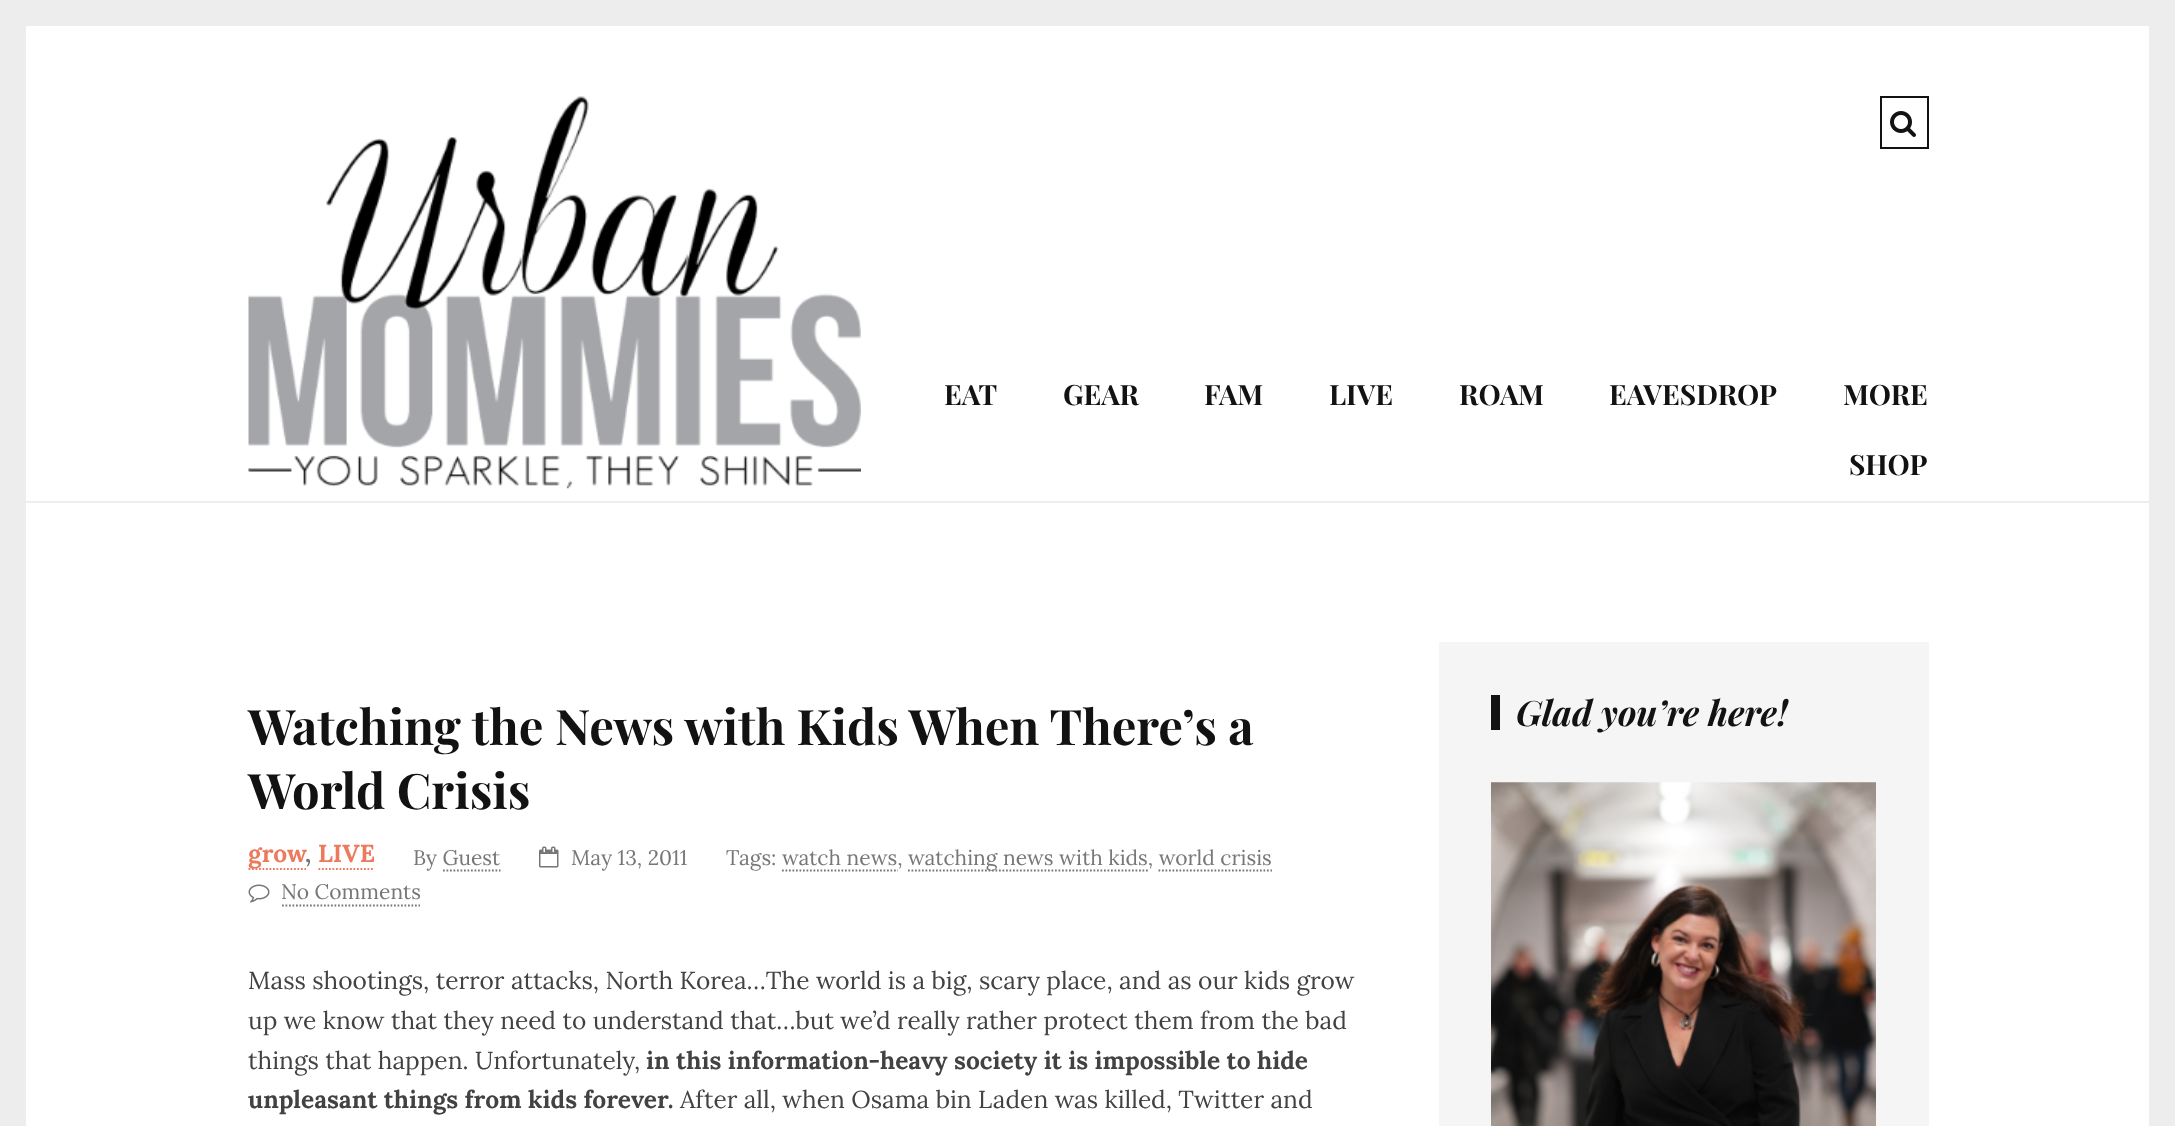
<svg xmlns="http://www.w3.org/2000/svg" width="2175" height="1126">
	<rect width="100%" height="100%" fill="#EDEDED" />
	<rect x="26" y="26" width="2123" height="1100" fill="#FFFFFF" />
	<rect x="26" y="501" width="2123" height="2" fill="#EEEEEE" />
	<rect x="1881" y="97" width="47" height="51" fill="none" stroke="#121212" stroke-width="2" />
	<image x="1890" y="111" width="26" height="26" href="assets/img1.png" />
	<image x="248" y="96" width="613" height="393" href="assets/img2.png" />
	<g font-family="Playfair Display" font-size="28" font-weight="700" fill="#121212">
		<text x="944" y="405">EAT</text>
		<text x="1063" y="405">GEAR</text>
		<text x="1204" y="405">FAM</text>
		<text x="1329" y="405">LIVE</text>
		<text x="1459" y="405">ROAM</text>
		<text x="1609" y="405">EAVESDROP</text>
		<text x="1843" y="405">MORE</text>
		<text x="1849" y="475">SHOP</text>
	</g>
	<g font-family="Playfair Display" font-size="49" font-weight="700" fill="#121212">
		<text x="248" y="745">Watching the News with Kids When There’s a</text>
		<text x="248" y="809">World Crisis</text>
	</g>
	<path d="M248.5 869H306" fill="none" stroke="#EC7A5C" stroke-width="1.8" stroke-dasharray="1.75 1.75" />
	<text x="248" y="862" font-family="Lora" font-size="24.5" font-weight="700" fill="#EC7A5C">grow</text>
	<text x="305" y="862" font-family="Lora" font-size="24.5" font-weight="700" fill="#777777">,</text>
	<text x="318" y="862" font-family="Lora" font-size="24.5" font-weight="700" fill="#EC7A5C">LIVE</text>
	<path d="M318.5 869H374.5" fill="none" stroke="#EC7A5C" stroke-width="1.8" stroke-dasharray="1.75 1.75" />
	<text x="413" y="865" font-family="Lora" font-size="21" fill="#777777">By Guest</text>
	<path d="M443 870.5H500.5" fill="none" stroke="#777777" stroke-width="1.8" stroke-dasharray="1.75 1.75" />
	<image x="539" y="846" width="20" height="22" href="assets/img3.png" />
	<g font-family="Lora" font-size="21" fill="#777777">
		<text x="571" y="865">May 13, 2011</text>
		<text x="726" y="865">Tags: watch news,</text>
	</g>
	<path d="M908 870.5H1148" fill="none" stroke="#777777" stroke-width="1.8" stroke-dasharray="1.75 1.75" />
	<text x="908" y="865" font-family="Lora" font-size="21" fill="#777777">watching news with kids, world crisis</text>
	<path d="M782 870.5H898" fill="none" stroke="#777777" stroke-width="1.8" stroke-dasharray="1.75 1.75" />
	<path d="M1158.5 870.5H1272" fill="none" stroke="#777777" stroke-width="1.8" stroke-dasharray="1.75 1.75" />
	<image x="248" y="884" width="22" height="19" href="assets/img4.png" />
	<text x="281" y="899" font-family="Lora" font-size="21" fill="#777777">No Comments</text>
	<path d="M282 905.5H420" fill="none" stroke="#777777" stroke-width="1.8" stroke-dasharray="1.75 1.75" />
	<g font-family="Lora" font-size="24.5" fill="#424242">
		<text x="248" y="989">Mass shootings, terror attacks, North Korea…The world is a big, scary place, and as our kids grow</text>
		<text x="248" y="1029">up we know that they need to understand that…but we’d really rather protect them from the bad</text>
		<text x="248" y="1069">things that happen. Unfortunately,</text>
	</g>
	<g font-family="Lora" font-size="24.5" font-weight="700" fill="#424242">
		<text x="646" y="1069">in this information-heavy society it is impossible to hide</text>
		<text x="248" y="1108">unpleasant things from kids forever.</text>
	</g>
	<text x="680" y="1108" font-family="Lora" font-size="24.5" fill="#424242">After all, when Osama bin Laden was killed, Twitter and</text>
	<rect x="1439" y="642" width="490" height="484" fill="#F5F5F5" />
	<rect x="1491" y="695" width="9" height="35" fill="#121212" />
	<text x="1516" y="726" font-family="Playfair Display" font-size="35" font-weight="700" font-style="italic" fill="#121212">Glad you’re here!</text>
	<image x="1491" y="782" width="385" height="344" href="assets/img5.png" />
</svg>
